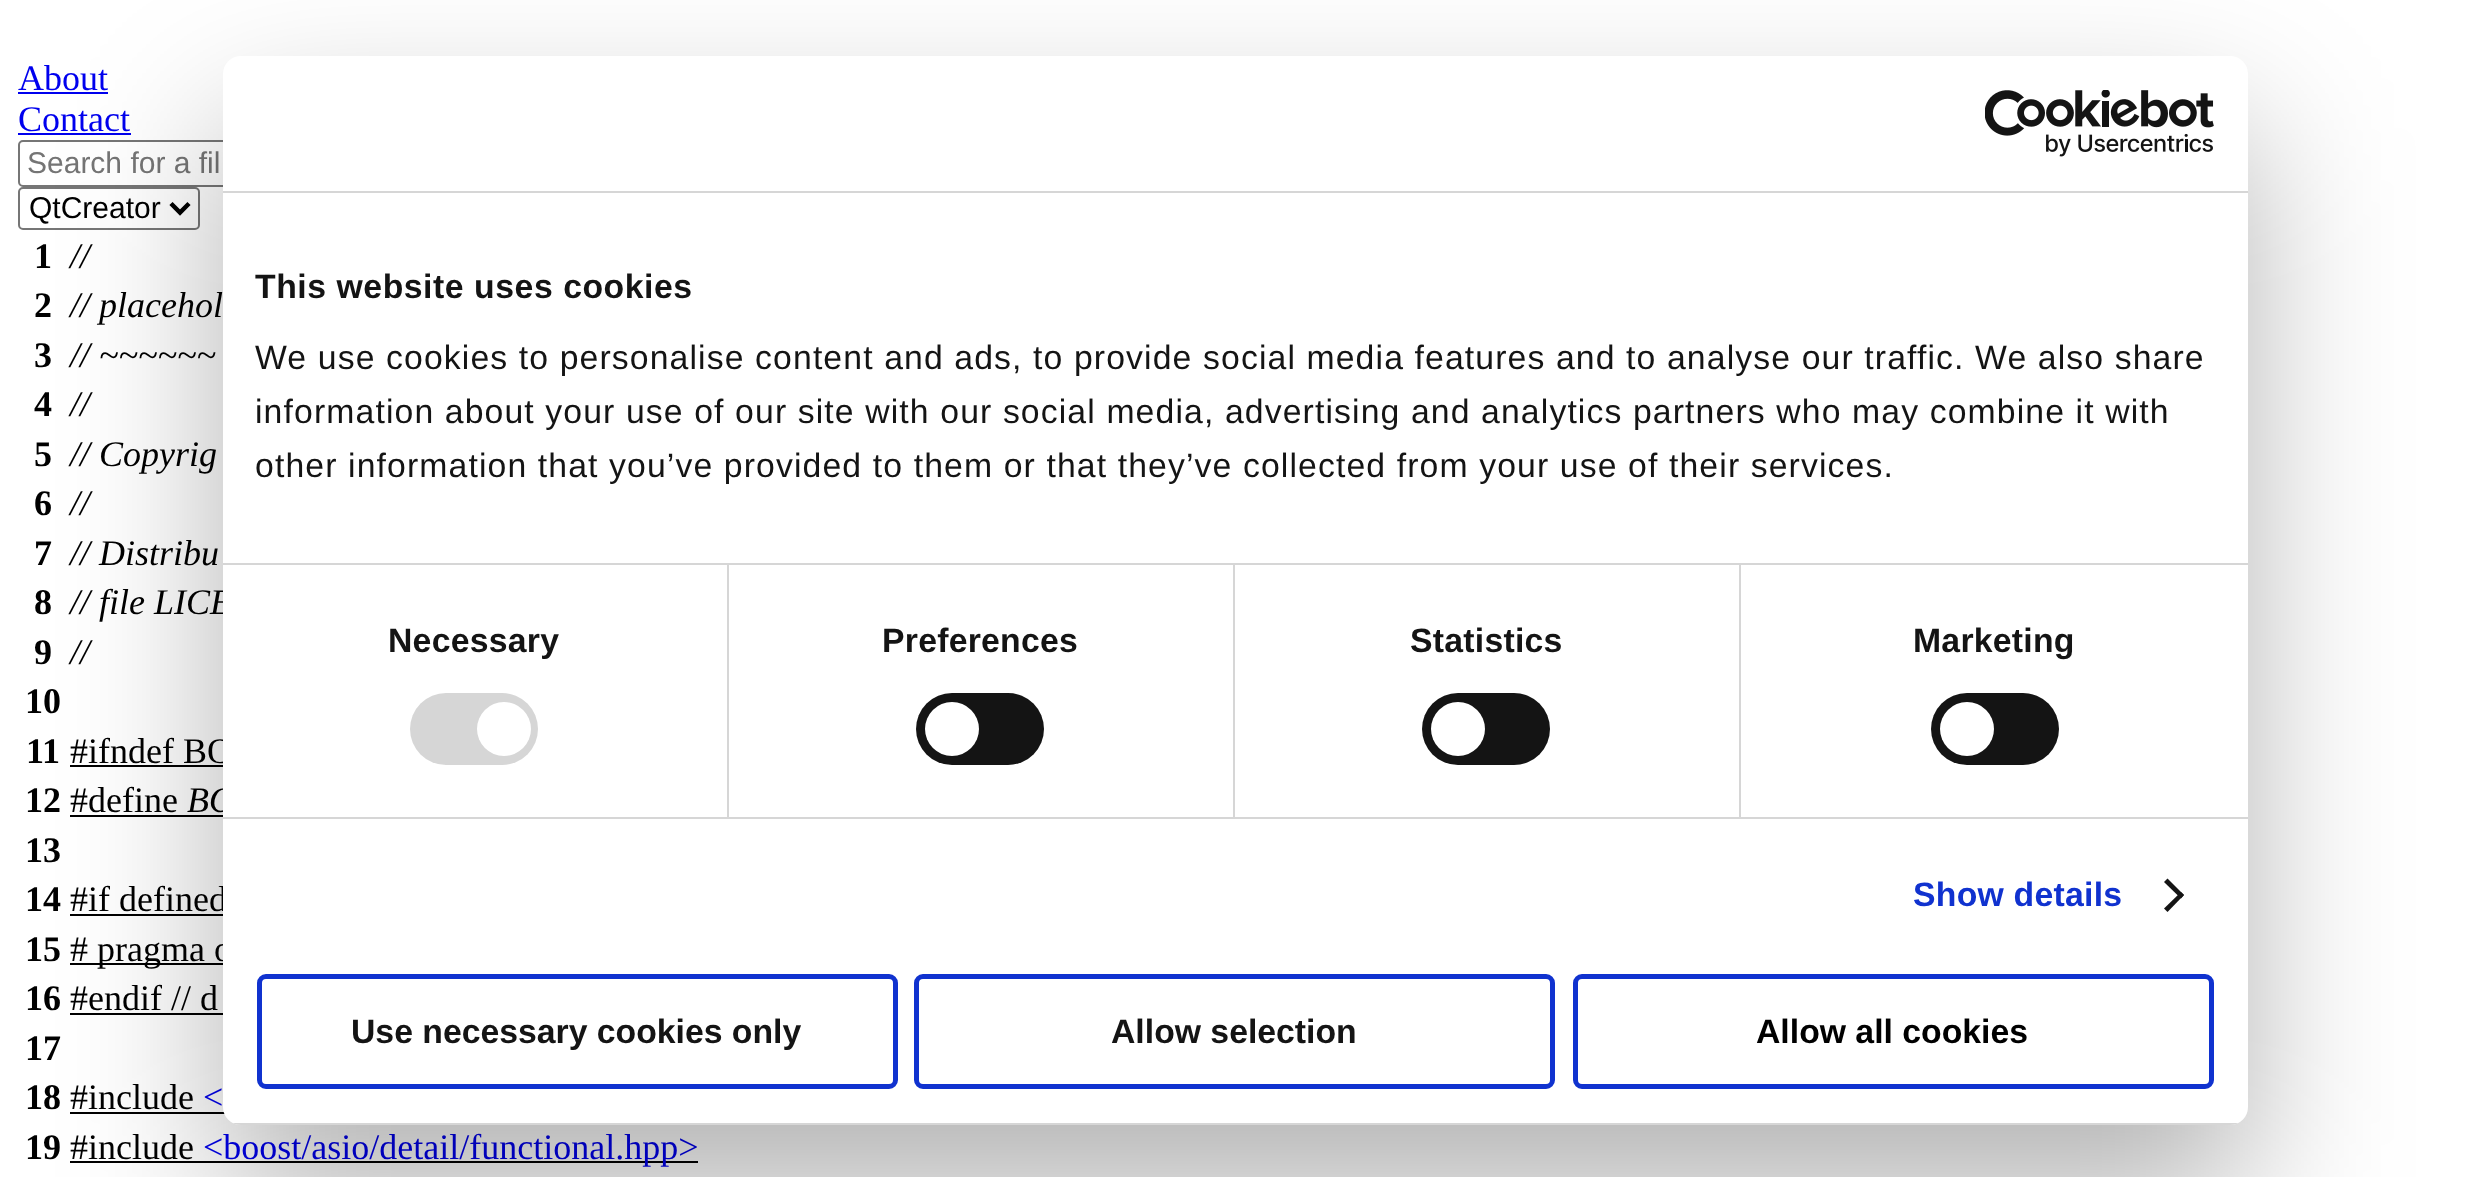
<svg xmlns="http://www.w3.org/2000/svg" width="2468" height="1177">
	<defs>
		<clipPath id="clip1"><rect x="223" y="56" width="2025" height="1069" rx="18" /></clipPath>
	</defs>
	<rect width="100%" height="100%" fill="#FFFFFF" />
	<text x="18" y="90" font-family="Liberation Serif" font-size="36" fill="#0000EE">About</text>
	<rect x="18" y="92" width="90" height="2" fill="#0000EE" />
	<text x="18" y="131" font-family="Liberation Serif" font-size="36" fill="#0000EE">Contact</text>
	<rect x="18" y="133" width="113" height="2" fill="#0000EE" />
	<rect x="19" y="141" width="414" height="45" rx="4" fill="none" stroke="#767676" stroke-width="2" />
	<text x="27" y="173" font-family="Liberation Sans" font-size="30" fill="#757575">Search for a fil</text>
	<rect x="19" y="188" width="180" height="41" rx="4" fill="none" stroke="#767676" stroke-width="2" />
	<path d="M171 203.5L180 212.5L189 203.5" fill="none" stroke="#000000" stroke-width="4.5" />
	<text x="29" y="218" font-family="Liberation Sans" font-size="30" fill="#000000">QtCreator</text>
	<text x="34" y="268" font-family="Liberation Serif" font-size="36" font-weight="700" fill="#000000">1</text>
	<text x="70" y="268" font-family="Liberation Serif" font-size="36" font-style="italic" fill="#000000">//</text>
	<text x="34" y="317" font-family="Liberation Serif" font-size="36" font-weight="700" fill="#000000">2</text>
	<text x="70" y="317" font-family="Liberation Serif" font-size="36" font-style="italic" fill="#000000">// placehol</text>
	<text x="34" y="367" font-family="Liberation Serif" font-size="36" font-weight="700" fill="#000000">3</text>
	<text x="70" y="367" font-family="Liberation Serif" font-size="36" font-style="italic" fill="#000000">// ~~~~~~</text>
	<text x="34" y="416" font-family="Liberation Serif" font-size="36" font-weight="700" fill="#000000">4</text>
	<text x="70" y="416" font-family="Liberation Serif" font-size="36" font-style="italic" fill="#000000">//</text>
	<text x="34" y="466" font-family="Liberation Serif" font-size="36" font-weight="700" fill="#000000">5</text>
	<text x="70" y="466" font-family="Liberation Serif" font-size="36" font-style="italic" fill="#000000">// Copyrig</text>
	<text x="34" y="515" font-family="Liberation Serif" font-size="36" font-weight="700" fill="#000000">6</text>
	<text x="70" y="515" font-family="Liberation Serif" font-size="36" font-style="italic" fill="#000000">//</text>
	<text x="34" y="565" font-family="Liberation Serif" font-size="36" font-weight="700" fill="#000000">7</text>
	<text x="70" y="565" font-family="Liberation Serif" font-size="36" font-style="italic" fill="#000000">// Distribu</text>
	<text x="34" y="614" font-family="Liberation Serif" font-size="36" font-weight="700" fill="#000000">8</text>
	<text x="70" y="614" font-family="Liberation Serif" font-size="36" font-style="italic" fill="#000000">// file LICE</text>
	<text x="34" y="664" font-family="Liberation Serif" font-size="36" font-weight="700" fill="#000000">9</text>
	<text x="70" y="664" font-family="Liberation Serif" font-size="36" font-style="italic" fill="#000000">//</text>
	<g font-family="Liberation Serif" font-size="36" font-weight="700" fill="#000000">
		<text x="25" y="713">10</text>
		<text x="26" y="763">11</text>
	</g>
	<text x="70" y="763" font-family="Liberation Serif" font-size="36" fill="#000000">#ifndef BO</text>
	<rect x="70" y="765" width="153" height="2" fill="#000000" />
	<text x="25" y="812" font-family="Liberation Serif" font-size="36" font-weight="700" fill="#000000">12</text>
	<text x="70" y="812" font-family="Liberation Serif" font-size="36" fill="#000000">#define</text>
	<text x="187" y="812" font-family="Liberation Serif" font-size="36" font-style="italic" fill="#000000">BO</text>
	<rect x="70" y="815" width="153" height="2" fill="#000000" />
	<g font-family="Liberation Serif" font-size="36" font-weight="700" fill="#000000">
		<text x="25" y="862">13</text>
		<text x="25" y="911">14</text>
	</g>
	<text x="70" y="911" font-family="Liberation Serif" font-size="36" fill="#000000">#if defined</text>
	<rect x="70" y="914" width="153" height="2" fill="#000000" />
	<text x="25" y="961" font-family="Liberation Serif" font-size="36" font-weight="700" fill="#000000">15</text>
	<rect x="70" y="963" width="153" height="2" fill="#000000" />
	<text x="70" y="961" font-family="Liberation Serif" font-size="36" fill="#000000"># pragma o</text>
	<text x="25" y="1010" font-family="Liberation Serif" font-size="36" font-weight="700" fill="#000000">16</text>
	<text x="70" y="1010" font-family="Liberation Serif" font-size="36" fill="#000000">#endif // d</text>
	<rect x="70" y="1013" width="153" height="2" fill="#000000" />
	<g font-family="Liberation Serif" font-size="36" font-weight="700" fill="#000000">
		<text x="25" y="1060">17</text>
		<text x="25" y="1109">18</text>
	</g>
	<text x="70" y="1109" font-family="Liberation Serif" font-size="36" fill="#000000">#include</text>
	<rect x="70" y="1112" width="155" height="2" fill="#000000" />
	<text x="203" y="1109" font-family="Liberation Serif" font-size="36" fill="#0000EE">&lt;</text>
	<text x="25" y="1159" font-family="Liberation Serif" font-size="36" font-weight="700" fill="#000000">19</text>
	<text x="70" y="1159" font-family="Liberation Serif" font-size="36" fill="#000000">#include</text>
	<rect x="70" y="1161" width="628" height="2" fill="#000000" />
	<text x="203" y="1159" font-family="Liberation Serif" font-size="36" fill="#0000EE">&lt;boost/asio/detail/functional.hpp&gt;</text>
	<rect x="223" y="128" width="2025" height="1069" rx="18" fill="#000000" fill-opacity="0.3" filter="blur(76.5px)" />
	<rect x="223" y="56" width="2025" height="1069" rx="18" fill="#FFFFFF" />
	<rect x="223" y="191" width="2025" height="2" fill="#D6D6D6" />
	<image x="1985" y="90" width="229" height="67" href="assets/img1.png" />
	<rect x="223" y="563" width="2025" height="2" fill="#D6D6D6" />
	<text x="255" y="298" font-family="Liberation Sans" font-size="33.75" font-weight="700" letter-spacing="0.55" fill="#141414">This website uses cookies</text>
	<g font-family="Liberation Sans" font-size="33.75" letter-spacing="1.12" fill="#141414">
		<text x="255" y="369">We use cookies to personalise content and ads, to provide social media features and to analyse our traffic. We also share</text>
		<text x="255" y="423">information about your use of our site with our social media, advertising and analytics partners who may combine it with</text>
		<text x="255" y="477">other information that you’ve provided to them or that they’ve collected from your use of their services.</text>
	</g>
	<rect x="223" y="817" width="2025" height="2" fill="#D6D6D6" />
	<rect x="727" y="565" width="2" height="252" fill="#D6D6D6" />
	<text x="388" y="652" font-family="Liberation Sans" font-size="33.75" font-weight="700" letter-spacing="0.25" fill="#141414">Necessary</text>
	<rect x="410" y="693" width="128" height="72" rx="36" fill="#D6D6D6" />
	<circle cx="504" cy="729" r="27" fill="#FFFFFF" />
	<rect x="1233" y="565" width="2" height="252" fill="#D6D6D6" />
	<text x="882" y="652" font-family="Liberation Sans" font-size="33.75" font-weight="700" letter-spacing="0.25" fill="#141414">Preferences</text>
	<rect x="916" y="693" width="128" height="72" rx="36" fill="#141414" />
	<circle cx="952" cy="729" r="27" fill="#FFFFFF" />
	<rect x="1739" y="565" width="2" height="252" fill="#D6D6D6" />
	<text x="1410" y="652" font-family="Liberation Sans" font-size="33.75" font-weight="700" letter-spacing="0.25" fill="#141414">Statistics</text>
	<rect x="1422" y="693" width="128" height="72" rx="36" fill="#141414" />
	<circle cx="1458" cy="729" r="27" fill="#FFFFFF" />
	<text x="1913" y="652" font-family="Liberation Sans" font-size="33.75" font-weight="700" letter-spacing="0.25" fill="#141414">Marketing</text>
	<rect x="1931" y="693" width="128" height="72" rx="36" fill="#141414" />
	<circle cx="1967" cy="729" r="27" fill="#FFFFFF" />
	<text x="1913" y="906" font-family="Liberation Sans" font-size="33.75" font-weight="700" letter-spacing="0.25" fill="#1032CF">Show details</text>
	<path d="M2167.5 878.5L2184 895L2181 898.5L2164 882Z" fill="#141414" />
	<path d="M2181 892L2184 895L2167.5 912L2164 908.5Z" fill="#141414" />
	<g clip-path="url(#clip1)">
		<rect x="233" y="1123" width="2005" height="2" fill="#D6D6D6" />
	</g>
	<rect x="259.5" y="976.5" width="636" height="110" rx="6.5" fill="none" stroke="#1032CF" stroke-width="5" />
	<text x="351" y="1043" font-family="Liberation Sans" font-size="33.75" font-weight="700" fill="#141414">Use necessary cookies only</text>
	<rect x="916.5" y="976.5" width="636" height="110" rx="6.5" fill="none" stroke="#1032CF" stroke-width="5" />
	<text x="1111" y="1043" font-family="Liberation Sans" font-size="33.75" font-weight="700" fill="#141414">Allow selection</text>
	<rect x="1575.5" y="976.5" width="636" height="110" rx="6.5" fill="none" stroke="#1032CF" stroke-width="5" />
	<text x="1756" y="1043" font-family="Liberation Sans" font-size="33.75" font-weight="700" fill="#000000">Allow all cookies</text>
</svg>
